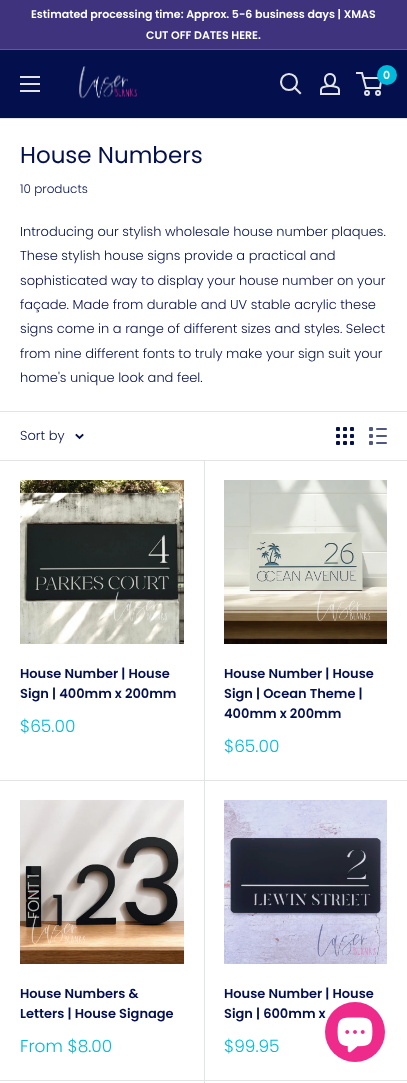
<svg xmlns="http://www.w3.org/2000/svg" width="407" height="1083">
	<rect width="100%" height="100%" fill="#FFFFFF" />
	<rect x="0" y="0" width="407" height="49" fill="#3F337E" />
	<rect x="0" y="49" width="407" height="1" fill="#5D58A0" />
	<g font-family="Poppins" font-size="11" font-weight="600" fill="#FFFFFF">
		<text x="31" y="18">Estimated processing time: Approx. 5-6 business days | XMAS</text>
		<text x="146" y="39">CUT OFF DATES HERE.</text>
	</g>
	<rect x="0" y="50" width="407" height="68" fill="#040F4D" />
	<image x="79" y="66" width="58" height="33" href="assets/img1.png" />
	<path d="M300 93L294.5 87.5" fill="none" stroke="#E1E3E4" stroke-width="2.1" stroke-linecap="square" />
	<circle cx="289" cy="82" r="8" fill="none" stroke="#E1E3E4" stroke-width="2.1" />
	<image x="320" y="73" width="20" height="22" href="assets/img2.png" />
	<circle cx="367" cy="93" r="2" fill="none" stroke="#E1E3E4" stroke-width="2" />
	<circle cx="378" cy="93" r="2" fill="none" stroke="#E1E3E4" stroke-width="2" />
	<path d="M363.5 78H381.5L380 88H366L362 73H356" fill="none" stroke="#E1E3E4" stroke-width="2" />
	<circle cx="387" cy="75" r="10" fill="#00BADB" />
	<text x="383" y="79" font-family="Poppins" font-size="11" font-weight="600" fill="#FFFFFF">0</text>
	<image x="20" y="76" width="20" height="16" href="assets/img3.png" />
	<rect x="0" y="118" width="407" height="1" fill="#E1E3E4" />
	<text x="20" y="163" font-family="Poppins" font-size="23" fill="#040F4D">House Numbers</text>
	<text x="20" y="193" font-family="Poppins" font-size="12" font-weight="300" fill="#040F4D">10 products</text>
	<g font-family="Poppins" font-size="13" font-weight="300" fill="#040F4D">
		<text x="20" y="236">Introducing our stylish wholesale house number plaques.</text>
		<text x="20" y="260">These stylish house signs provide a practical and</text>
		<text x="20" y="285">sophisticated way to display your house number on your</text>
		<text x="20" y="309">façade. Made from durable and UV stable acrylic these</text>
		<text x="20" y="333">signs come in a range of different sizes and styles. Select</text>
		<text x="20" y="358">from nine different fonts to truly make your sign suit your</text>
		<text x="20" y="382">home's unique look and feel.</text>
	</g>
	<rect x="0" y="411" width="407" height="1" fill="#E1E3E4" />
	<rect x="0" y="780" width="407" height="1" fill="#E1E3E4" />
	<rect x="204" y="460" width="1" height="620" fill="#E1E3E4" />
	<rect x="0" y="460" width="407" height="1" fill="#E1E3E4" />
	<text x="20" y="440" font-family="Poppins" font-size="13" font-weight="300" fill="#040F4D">Sort by</text>
	<path d="M82.5 435L79.5 438L76.5 435" fill="none" stroke="#040F4D" stroke-width="1.9" stroke-linecap="square" />
	<image x="336" y="427" width="18" height="18" href="assets/img4.png" />
	<image x="369" y="427" width="18" height="18" href="assets/img5.png" />
	<image x="20" y="480" width="164" height="164" href="assets/img6.png" />
	<g font-family="Poppins" font-size="13" font-weight="600" fill="#040F4D">
		<text x="20" y="678">House Number | House</text>
		<text x="20" y="698">Sign | 400mm x 200mm</text>
	</g>
	<text x="20" y="732" font-family="Poppins" font-size="17" font-weight="300" fill="#00BADB">$65.00</text>
	<image x="224" y="480" width="163" height="164" href="assets/img7.png" />
	<g font-family="Poppins" font-size="13" font-weight="600" fill="#040F4D">
		<text x="224" y="678">House Number | House</text>
		<text x="224" y="698">Sign | Ocean Theme |</text>
		<text x="224" y="718">400mm x 200mm</text>
	</g>
	<text x="224" y="752" font-family="Poppins" font-size="17" font-weight="300" fill="#00BADB">$65.00</text>
	<image x="20" y="800" width="164" height="164" href="assets/img8.png" />
	<g font-family="Poppins" font-size="13" font-weight="600" fill="#040F4D">
		<text x="20" y="998">House Numbers &amp;</text>
		<text x="20" y="1018">Letters | House Signage</text>
	</g>
	<text x="20" y="1052" font-family="Poppins" font-size="17" font-weight="300" fill="#00BADB">From $8.00</text>
	<rect x="0" y="1080" width="407" height="1" fill="#E1E3E4" />
	<image x="224" y="800" width="163" height="164" href="assets/img9.png" />
	<g font-family="Poppins" font-size="13" font-weight="600" fill="#040F4D">
		<text x="224" y="998">House Number | House</text>
		<text x="224" y="1018">Sign | 600mm x</text>
	</g>
	<text x="224" y="1052" font-family="Poppins" font-size="17" font-weight="300" fill="#00BADB">$99.95</text>
	<rect x="204" y="1080" width="1" height="3" fill="#E1E3E4" />
	<circle cx="355" cy="1032" r="30" fill="#EE2B8B" />
	<image x="337" y="1017" width="36" height="36" href="assets/img10.png" />
</svg>
